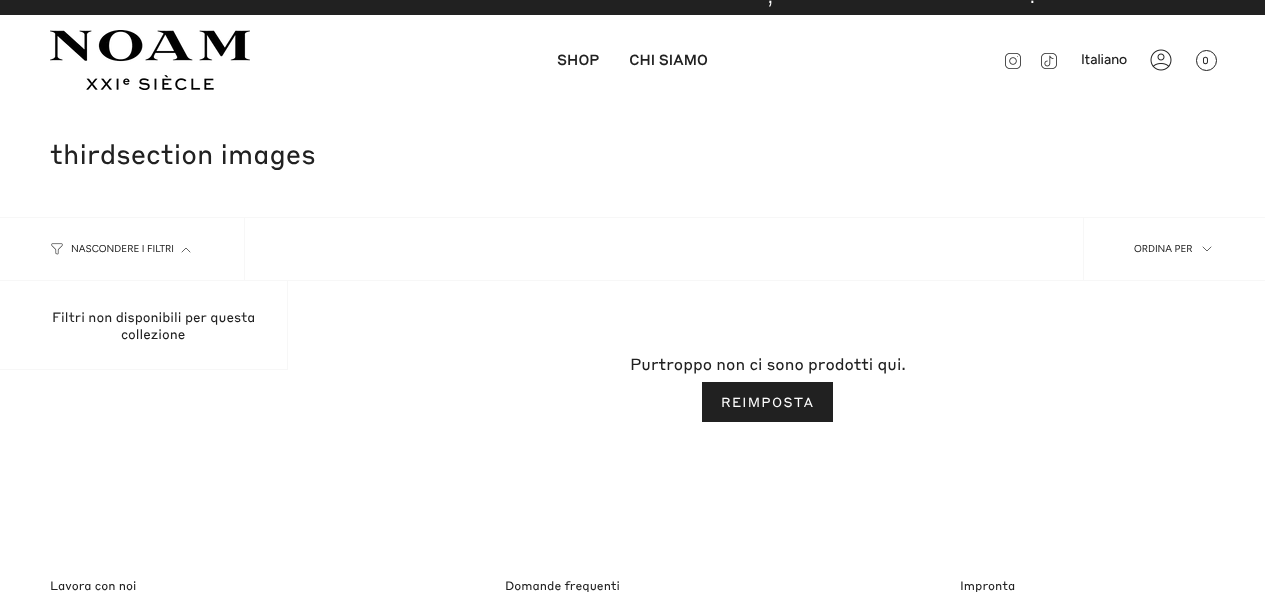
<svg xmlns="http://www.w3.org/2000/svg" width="1265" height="592">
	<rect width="100%" height="100%" fill="#FFFFFF" />
	<rect x="0" y="0" width="1265" height="15" fill="#212121" />
	<g font-family="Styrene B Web" font-size="16" fill="#FFFFFF">
		<text x="768" y="3">,</text>
		<text x="1030" y="3">.</text>
	</g>
	<image x="50" y="30" width="200" height="60" href="assets/img1.png" />
	<g font-family="Styrene B Web" font-size="14" font-weight="700" fill="#212121">
		<text x="557" y="65">SHOP</text>
		<text x="629" y="65">CHI SIAMO</text>
	</g>
	<image x="1005" y="53" width="16" height="16" href="assets/img2.png" />
	<image x="1041" y="53" width="16" height="16" href="assets/img3.png" />
	<text x="1081" y="64" font-family="Figtree" font-size="14" font-weight="500" fill="#212121">Italiano</text>
	<image x="1150" y="49" width="22" height="22" href="assets/img4.png" />
	<circle cx="1206.5" cy="60.5" r="10" fill="none" stroke="#212121" />
	<text x="1202" y="64" font-family="Styrene B Web" font-size="10" fill="#212121">0</text>
	<text x="50" y="164" font-family="Styrene B Web" font-size="27" fill="#212121">thirdsection images</text>
	<rect x="0" y="217" width="1265" height="1" fill="#F7F7F7" />
	<rect x="0" y="280" width="1265" height="1" fill="#F7F7F7" />
	<rect x="244" y="218" width="1" height="62" fill="#F7F7F7" />
	<image x="51" y="243" width="12" height="12" href="assets/img5.png" />
	<text x="71" y="252" font-family="Figtree" font-size="10" fill="#212121">NASCONDERE I FILTRI</text>
	<path d="M182 252L186 248L190 252" fill="none" stroke="#212121" stroke-width="0.7" stroke-linecap="round" stroke-linejoin="round" />
	<rect x="1083" y="218" width="1" height="62" fill="#F7F7F7" />
	<text x="1134" y="252" font-family="Figtree" font-size="10" fill="#212121">ORDINA PER</text>
	<path d="M1203 247L1207 251L1211 247" fill="none" stroke="#212121" stroke-width="0.7" stroke-linecap="round" stroke-linejoin="round" />
	<rect x="287" y="281" width="1" height="89" fill="#F7F7F7" />
	<rect x="0" y="369" width="288" height="1" fill="#F7F7F7" />
	<g font-family="Styrene B Web" font-size="13.25" fill="#212121">
		<text x="52" y="322">Filtri non disponibili per questa</text>
		<text x="121" y="339">collezione</text>
	</g>
	<text x="630" y="370" font-family="Styrene B Web" font-size="16" fill="#212121">Purtroppo non ci sono prodotti qui.</text>
	<rect x="702" y="382" width="131" height="40" fill="#212121" />
	<text x="721" y="407" font-family="Styrene B Web" font-size="13" letter-spacing="1.25" fill="#FFFFFF">REIMPOSTA</text>
	<g font-family="Styrene B Web" font-size="12" fill="#212121">
		<text x="50" y="590">Lavora con noi</text>
		<text x="505" y="590">Domande frequenti</text>
		<text x="960" y="590">Impronta</text>
	</g>
</svg>
